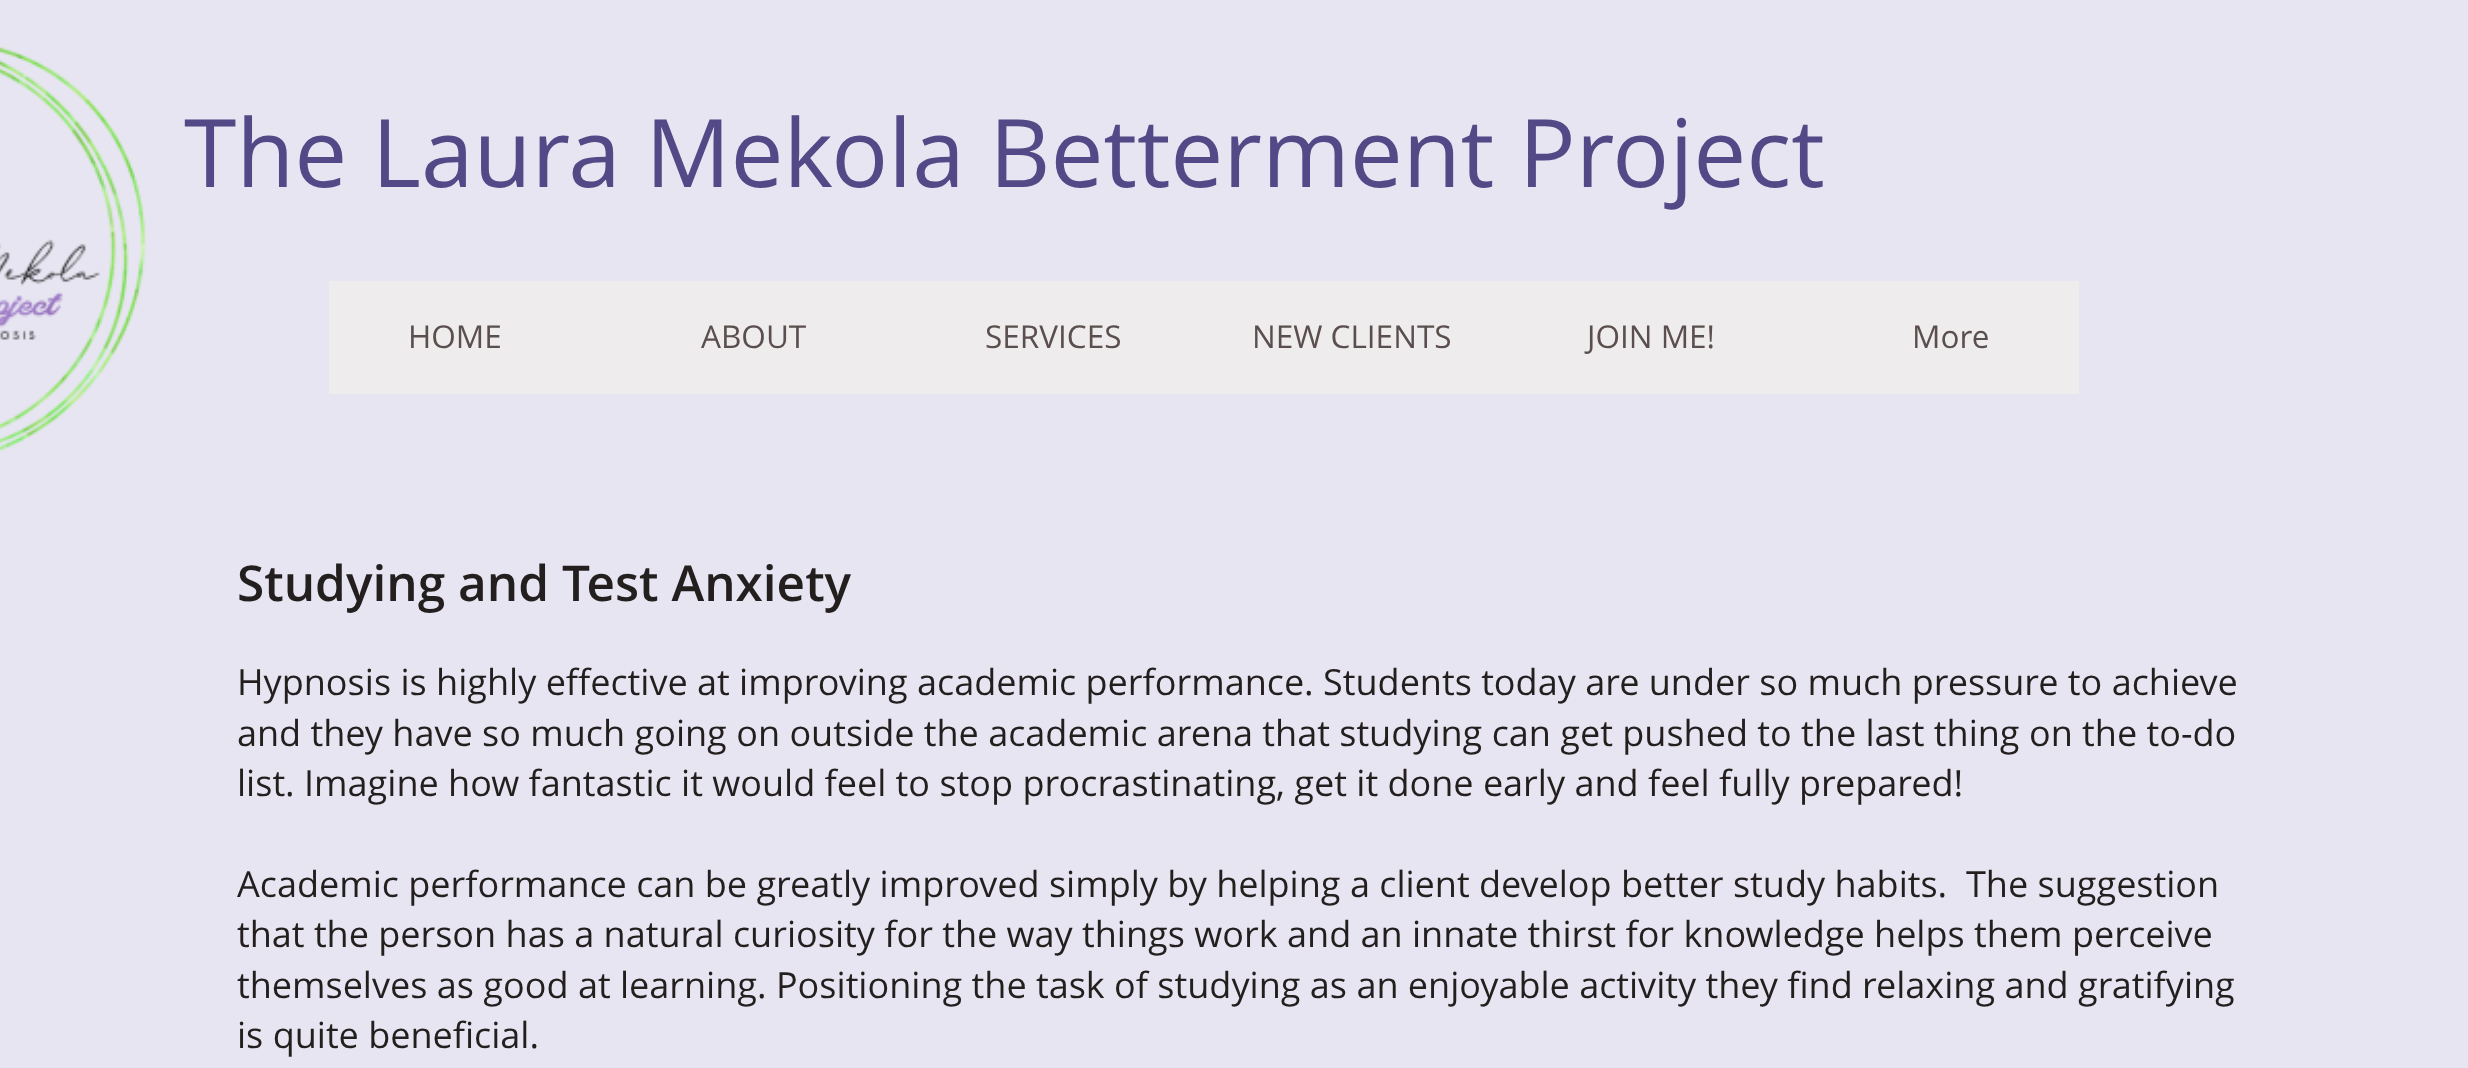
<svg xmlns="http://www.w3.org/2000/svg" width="2468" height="1068">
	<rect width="100%" height="100%" fill="#E7E5F1" />
	<image x="0" y="47" width="146" height="405" href="assets/img1.png" />
	<text x="184" y="187" font-family="Open Sans" font-size="94.5" fill="#534987">The Laura Mekola Betterment Project</text>
	<rect x="329" y="281" width="1750" height="113" fill="#EEECEC" />
	<g font-family="Open Sans" font-size="31.5" fill="#5A4E4E">
		<text x="408" y="348">HOME</text>
		<text x="701" y="348">ABOUT</text>
		<text x="985" y="348">SERVICES</text>
		<text x="1252" y="348">NEW CLIENTS</text>
		<text x="1587" y="348">JOIN ME!</text>
		<text x="1912" y="348">More</text>
	</g>
	<text x="237" y="601" font-family="Open Sans" font-size="49.5" font-weight="600" fill="#241F1F">Studying and Test Anxiety</text>
	<g font-family="Open Sans" font-size="36" fill="#241F1F">
		<text x="237" y="695">Hypnosis is highly effective at improving academic performance. Students today are under so much pressure to achieve</text>
		<text x="237" y="746">and they have so much going on outside the academic arena that studying can get pushed to the last thing on the to-do</text>
		<text x="237" y="796">list. Imagine how fantastic it would feel to stop procrastinating, get it done early and feel fully prepared!</text>
		<text x="237" y="897" xml:space="preserve">Academic performance can be greatly improved simply by helping a client develop better study habits.  The suggestion</text>
		<text x="237" y="947">that the person has a natural curiosity for the way things work and an innate thirst for knowledge helps them perceive</text>
		<text x="237" y="998">themselves as good at learning. Positioning the task of studying as an enjoyable activity they find relaxing and gratifying</text>
		<text x="237" y="1048">is quite beneficial.</text>
	</g>
</svg>
